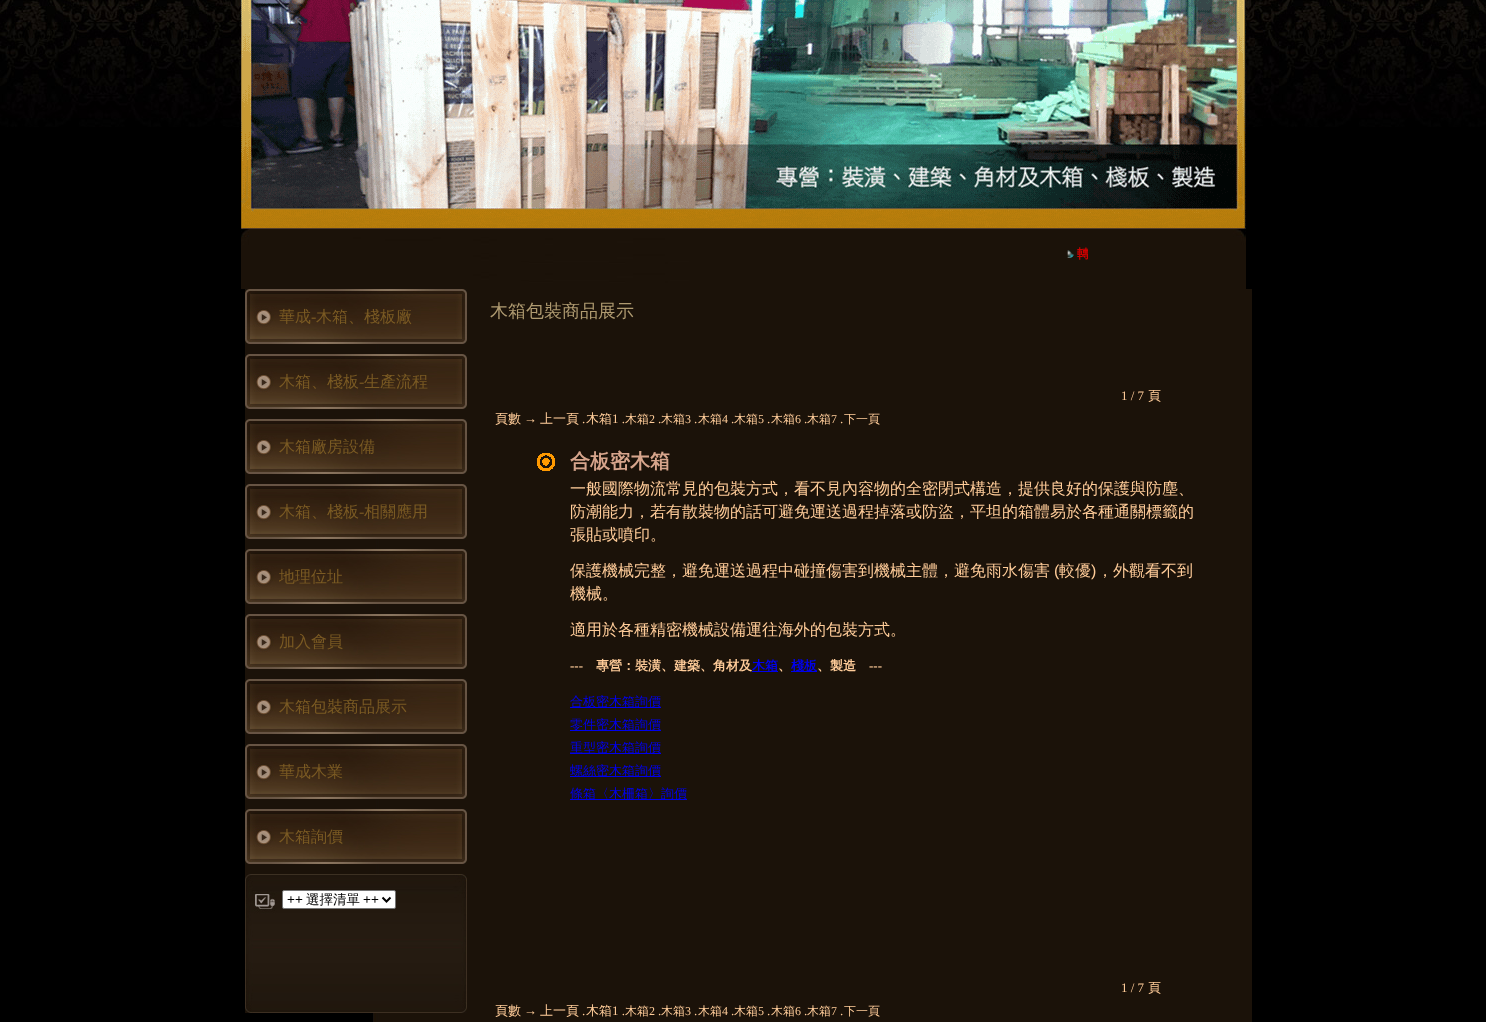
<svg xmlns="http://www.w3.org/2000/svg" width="1486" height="1022">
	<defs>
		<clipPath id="clip1"><rect x="456" y="245" width="632" height="16" /></clipPath>
	</defs>
	<rect width="100%" height="100%" fill="#000000" />
	<image x="0" y="0" width="1486" height="127" href="assets/img1.png" />
	<image x="241" y="0" width="1005" height="229" href="assets/img2.png" />
	<image x="241" y="229" width="1005" height="16" href="assets/img3.png" />
	<image x="456" y="245" width="754" height="44" href="assets/img4.png" />
	<rect x="241" y="245" width="215" height="44" fill="#1B1209" />
	<image x="1067" y="250" width="7" height="8" href="assets/img5.png" />
	<g clip-path="url(#clip1)">
		<text x="1077" y="258" font-family="WenQuanYi Zen Hei" font-size="13" font-weight="700" fill="#CC0000">轉</text>
	</g>
	<rect x="1210" y="245" width="36" height="44" fill="#1B1209" />
	<image x="373" y="289" width="879" height="733" href="assets/img6.png" />
	<rect x="245" y="289" width="131" height="585" fill="#1B1209" />
	<image x="245" y="289" width="222" height="55" href="assets/img7.png" />
	<text x="279" y="322" font-family="WenQuanYi Zen Hei" font-size="16" font-weight="500" fill="#7A5A23">華成</text>
	<text x="311" y="322" font-family="Liberation Serif" font-size="16" fill="#7A5A23">-</text>
	<text x="316" y="322" font-family="WenQuanYi Zen Hei" font-size="16" font-weight="500" fill="#7A5A23">木箱、棧板廠</text>
	<image x="245" y="354" width="222" height="55" href="assets/img7.png" />
	<text x="279" y="387" font-family="WenQuanYi Zen Hei" font-size="16" font-weight="500" fill="#7A5A23">木箱、棧板</text>
	<text x="359" y="387" font-family="Liberation Serif" font-size="16" fill="#7A5A23">-</text>
	<text x="364" y="387" font-family="WenQuanYi Zen Hei" font-size="16" font-weight="500" fill="#7A5A23">生產流程</text>
	<image x="245" y="419" width="222" height="55" href="assets/img7.png" />
	<text x="279" y="452" font-family="WenQuanYi Zen Hei" font-size="16" font-weight="500" fill="#7A5A23">木箱廠房設備</text>
	<image x="245" y="484" width="222" height="55" href="assets/img7.png" />
	<text x="279" y="517" font-family="WenQuanYi Zen Hei" font-size="16" font-weight="500" fill="#7A5A23">木箱、棧板</text>
	<text x="359" y="517" font-family="Liberation Serif" font-size="16" fill="#7A5A23">-</text>
	<text x="364" y="517" font-family="WenQuanYi Zen Hei" font-size="16" font-weight="500" fill="#7A5A23">相關應用</text>
	<image x="245" y="549" width="222" height="55" href="assets/img7.png" />
	<text x="279" y="582" font-family="WenQuanYi Zen Hei" font-size="16" font-weight="500" fill="#7A5A23">地理位址</text>
	<image x="245" y="614" width="222" height="55" href="assets/img7.png" />
	<text x="279" y="647" font-family="WenQuanYi Zen Hei" font-size="16" font-weight="500" fill="#7A5A23">加入會員</text>
	<image x="245" y="679" width="222" height="55" href="assets/img7.png" />
	<text x="279" y="712" font-family="WenQuanYi Zen Hei" font-size="16" font-weight="500" fill="#7A5A23">木箱包裝商品展示</text>
	<image x="245" y="744" width="222" height="55" href="assets/img7.png" />
	<text x="279" y="777" font-family="WenQuanYi Zen Hei" font-size="16" font-weight="500" fill="#7A5A23">華成木業</text>
	<image x="245" y="809" width="222" height="55" href="assets/img7.png" />
	<text x="279" y="842" font-family="WenQuanYi Zen Hei" font-size="16" font-weight="500" fill="#7A5A23">木箱詢價</text>
	<image x="245" y="874" width="222" height="139" href="assets/img8.png" />
	<rect x="282.5" y="890.5" width="113" height="18" rx="1.5" fill="#FFFFFF" stroke="#767676" />
	<path d="M382.5 897.5L386.5 901.5L390.5 897.5" fill="none" stroke="#000000" stroke-width="2" />
	<text x="287" y="904" font-family="Liberation Sans" font-size="13.5" fill="#000000">++</text>
	<text x="306" y="904" font-family="WenQuanYi Zen Hei" font-size="13.5" font-weight="500" fill="#000000">選擇清單</text>
	<text x="363" y="904" font-family="Liberation Sans" font-size="13.5" fill="#000000">++</text>
	<text x="490" y="317" font-family="WenQuanYi Zen Hei" font-size="18" font-weight="500" fill="#AF9A70">木箱包裝商品展示</text>
	<text x="1121" y="400" font-family="Liberation Serif" font-size="13" fill="#FFCC99">1 / 7</text>
	<g font-family="WenQuanYi Zen Hei" font-size="13" font-weight="500" fill="#FFCC99">
		<text x="1148" y="400">頁</text>
		<text x="495" y="423">頁數</text>
	</g>
	<text x="524" y="423" font-family="Liberation Serif" font-size="13" fill="#FFCC99">→</text>
	<text x="540" y="423" font-family="WenQuanYi Zen Hei" font-size="13" font-weight="500" fill="#FFCC99">上一頁</text>
	<text x="582" y="423" font-family="Liberation Serif" font-size="13" fill="#FFCC99">.</text>
	<text x="586" y="423" font-family="WenQuanYi Zen Hei" font-size="13" font-weight="500" fill="#FFCC99">木箱</text>
	<text x="612" y="423" font-family="Liberation Serif" font-size="13" fill="#FFCC99">1 .</text>
	<text x="625" y="423" font-family="WenQuanYi Zen Hei" font-size="12" font-weight="500" fill="#FFCC99">木箱</text>
	<text x="649" y="423" font-family="Liberation Serif" font-size="12" fill="#FFCC99">2</text>
	<text x="658" y="423" font-family="Liberation Serif" font-size="13" fill="#FFCC99">.</text>
	<text x="661" y="423" font-family="WenQuanYi Zen Hei" font-size="12" font-weight="500" fill="#FFCC99">木箱</text>
	<text x="685" y="423" font-family="Liberation Serif" font-size="12" fill="#FFCC99">3</text>
	<text x="694" y="423" font-family="Liberation Serif" font-size="13" fill="#FFCC99">.</text>
	<text x="698" y="423" font-family="WenQuanYi Zen Hei" font-size="12" font-weight="500" fill="#FFCC99">木箱</text>
	<text x="722" y="423" font-family="Liberation Serif" font-size="12" fill="#FFCC99">4</text>
	<text x="731" y="423" font-family="Liberation Serif" font-size="13" fill="#FFCC99">.</text>
	<text x="734" y="423" font-family="WenQuanYi Zen Hei" font-size="12" font-weight="500" fill="#FFCC99">木箱</text>
	<text x="758" y="423" font-family="Liberation Serif" font-size="12" fill="#FFCC99">5</text>
	<text x="767" y="423" font-family="Liberation Serif" font-size="13" fill="#FFCC99">.</text>
	<text x="771" y="423" font-family="WenQuanYi Zen Hei" font-size="12" font-weight="500" fill="#FFCC99">木箱</text>
	<text x="795" y="423" font-family="Liberation Serif" font-size="12" fill="#FFCC99">6</text>
	<text x="804" y="423" font-family="Liberation Serif" font-size="13" fill="#FFCC99">.</text>
	<text x="807" y="423" font-family="WenQuanYi Zen Hei" font-size="12" font-weight="500" fill="#FFCC99">木箱</text>
	<text x="831" y="423" font-family="Liberation Serif" font-size="12" fill="#FFCC99">7</text>
	<text x="840" y="423" font-family="Liberation Serif" font-size="13" fill="#FFCC99">.</text>
	<text x="844" y="423" font-family="WenQuanYi Zen Hei" font-size="12" font-weight="500" fill="#FFCC99">下一頁</text>
	<image x="537" y="453" width="18" height="18" href="assets/img9.png" />
	<text x="570" y="468" font-family="WenQuanYi Zen Hei" font-size="20" font-weight="700" fill="#D7A58C">合板密木箱</text>
	<g font-family="WenQuanYi Zen Hei" font-size="16" font-weight="500" fill="#FFCC99">
		<text x="570" y="494">一般國際物流常見的包裝方式，看不見內容物的全密閉式構造，提供良好的保護與防塵、</text>
		<text x="570" y="517">防潮能力，若有散裝物的話可避免運送過程掉落或防盜，平坦的箱體易於各種通關標籤的</text>
		<text x="570" y="540">張貼或噴印。</text>
		<text x="570" y="576">保護機械完整，避免運送過程中碰撞傷害到機械主體，避免雨水傷害</text>
	</g>
	<text x="1054" y="576" font-family="Liberation Sans" font-size="16" fill="#FFCC99">(</text>
	<text x="1059" y="576" font-family="WenQuanYi Zen Hei" font-size="16" font-weight="500" fill="#FFCC99">較優</text>
	<text x="1091" y="576" font-family="Liberation Sans" font-size="16" fill="#FFCC99">)</text>
	<g font-family="WenQuanYi Zen Hei" font-size="16" font-weight="500" fill="#FFCC99">
		<text x="1097" y="576">，外觀看不到</text>
		<text x="570" y="599">機械。</text>
		<text x="570" y="635">適用於各種精密機械設備運往海外的包裝方式。</text>
	</g>
	<text x="570" y="670" font-family="Liberation Serif" font-size="13" font-weight="700" fill="#FFCC99">---</text>
	<text x="596" y="670" font-family="WenQuanYi Zen Hei" font-size="13" font-weight="700" fill="#FFCC99">專營：裝潢、建築、角材及</text>
	<rect x="752" y="671" width="26" height="1" fill="#0000EE" />
	<text x="752" y="670" font-family="WenQuanYi Zen Hei" font-size="13" font-weight="700" fill="#0000EE">木箱</text>
	<rect x="791" y="671" width="26" height="1" fill="#0000EE" />
	<text x="791" y="670" font-family="WenQuanYi Zen Hei" font-size="13" font-weight="700" fill="#0000EE">棧板</text>
	<text x="817" y="670" font-family="WenQuanYi Zen Hei" font-size="13" font-weight="700" fill="#FFCC99">、製造</text>
	<text x="869" y="670" font-family="Liberation Serif" font-size="13" font-weight="700" fill="#FFCC99">---</text>
	<text x="778" y="670" font-family="WenQuanYi Zen Hei" font-size="13" font-weight="700" fill="#FFCC99">、</text>
	<rect x="570" y="707" width="91" height="1" fill="#0000EE" />
	<text x="570" y="706" font-family="WenQuanYi Zen Hei" font-size="13" font-weight="500" fill="#0000EE">合板密木箱詢價</text>
	<rect x="570" y="730" width="91" height="1" fill="#0000EE" />
	<text x="570" y="729" font-family="WenQuanYi Zen Hei" font-size="13" font-weight="500" fill="#0000EE">零件密木箱詢價</text>
	<rect x="570" y="753" width="91" height="1" fill="#0000EE" />
	<text x="570" y="752" font-family="WenQuanYi Zen Hei" font-size="13" font-weight="500" fill="#0000EE">重型密木箱詢價</text>
	<rect x="570" y="776" width="91" height="1" fill="#0000EE" />
	<text x="570" y="775" font-family="WenQuanYi Zen Hei" font-size="13" font-weight="500" fill="#0000EE">螺絲密木箱詢價</text>
	<rect x="570" y="799" width="117" height="1" fill="#0000EE" />
	<text x="570" y="798" font-family="WenQuanYi Zen Hei" font-size="13" font-weight="500" fill="#0000EE">條箱〈木柵箱〉詢價</text>
	<text x="1121" y="992" font-family="Liberation Serif" font-size="13" fill="#FFCC99">1 / 7</text>
	<g font-family="WenQuanYi Zen Hei" font-size="13" font-weight="500" fill="#FFCC99">
		<text x="1148" y="992">頁</text>
		<text x="495" y="1015">頁數</text>
	</g>
	<text x="524" y="1015" font-family="Liberation Serif" font-size="13" fill="#FFCC99">→</text>
	<text x="540" y="1015" font-family="WenQuanYi Zen Hei" font-size="13" font-weight="500" fill="#FFCC99">上一頁</text>
	<text x="582" y="1015" font-family="Liberation Serif" font-size="13" fill="#FFCC99">.</text>
	<text x="586" y="1015" font-family="WenQuanYi Zen Hei" font-size="13" font-weight="500" fill="#FFCC99">木箱</text>
	<text x="612" y="1015" font-family="Liberation Serif" font-size="13" fill="#FFCC99">1 .</text>
	<text x="625" y="1015" font-family="WenQuanYi Zen Hei" font-size="12" font-weight="500" fill="#FFCC99">木箱</text>
	<text x="649" y="1015" font-family="Liberation Serif" font-size="12" fill="#FFCC99">2</text>
	<text x="658" y="1015" font-family="Liberation Serif" font-size="13" fill="#FFCC99">.</text>
	<text x="661" y="1015" font-family="WenQuanYi Zen Hei" font-size="12" font-weight="500" fill="#FFCC99">木箱</text>
	<text x="685" y="1015" font-family="Liberation Serif" font-size="12" fill="#FFCC99">3</text>
	<text x="694" y="1015" font-family="Liberation Serif" font-size="13" fill="#FFCC99">.</text>
	<text x="698" y="1015" font-family="WenQuanYi Zen Hei" font-size="12" font-weight="500" fill="#FFCC99">木箱</text>
	<text x="722" y="1015" font-family="Liberation Serif" font-size="12" fill="#FFCC99">4</text>
	<text x="731" y="1015" font-family="Liberation Serif" font-size="13" fill="#FFCC99">.</text>
	<text x="734" y="1015" font-family="WenQuanYi Zen Hei" font-size="12" font-weight="500" fill="#FFCC99">木箱</text>
	<text x="758" y="1015" font-family="Liberation Serif" font-size="12" fill="#FFCC99">5</text>
	<text x="767" y="1015" font-family="Liberation Serif" font-size="13" fill="#FFCC99">.</text>
	<text x="771" y="1015" font-family="WenQuanYi Zen Hei" font-size="12" font-weight="500" fill="#FFCC99">木箱</text>
	<text x="795" y="1015" font-family="Liberation Serif" font-size="12" fill="#FFCC99">6</text>
	<text x="804" y="1015" font-family="Liberation Serif" font-size="13" fill="#FFCC99">.</text>
	<text x="807" y="1015" font-family="WenQuanYi Zen Hei" font-size="12" font-weight="500" fill="#FFCC99">木箱</text>
	<text x="831" y="1015" font-family="Liberation Serif" font-size="12" fill="#FFCC99">7</text>
	<text x="840" y="1015" font-family="Liberation Serif" font-size="13" fill="#FFCC99">.</text>
	<text x="844" y="1015" font-family="WenQuanYi Zen Hei" font-size="12" font-weight="500" fill="#FFCC99">下一頁</text>
</svg>
